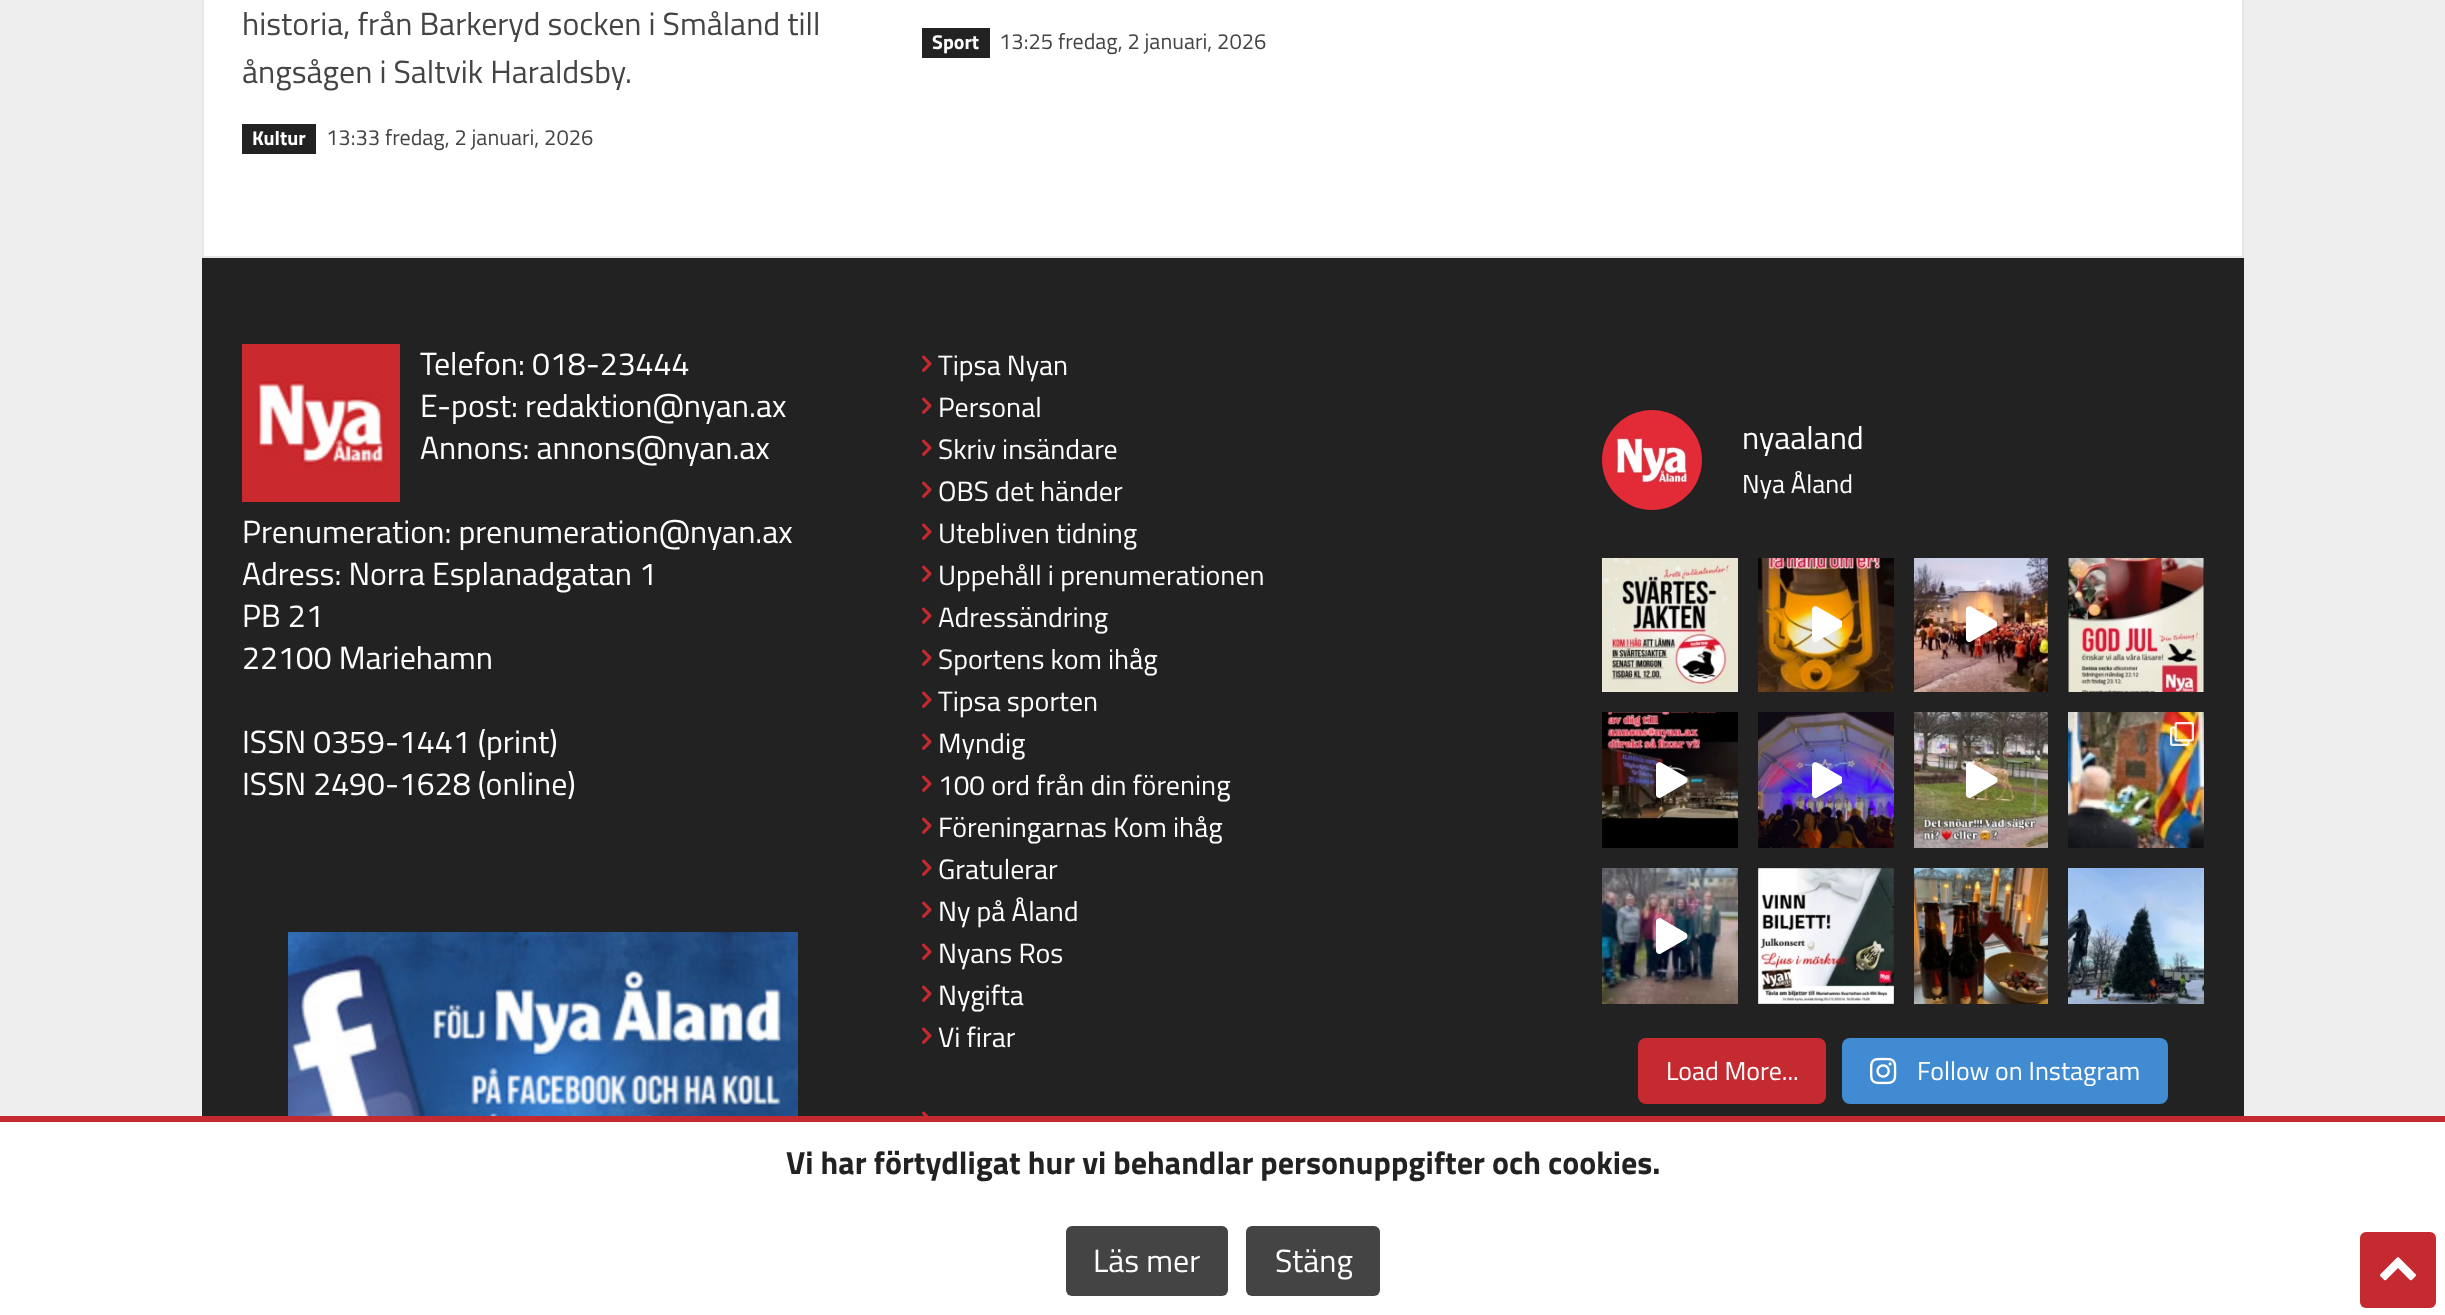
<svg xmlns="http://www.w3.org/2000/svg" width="2445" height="1315">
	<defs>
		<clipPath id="clip1"><rect x="1812" y="606" width="30" height="36" /></clipPath>
		<clipPath id="clip2"><rect x="1812" y="762" width="30" height="36" /></clipPath>
	</defs>
	<rect width="100%" height="100%" fill="#EEEEEE" />
	<rect x="204" y="0" width="2038" height="256" fill="#FFFFFF" />
	<rect x="202" y="256" width="2042" height="2" fill="#E6E6E6" />
	<rect x="202" y="0" width="2" height="256" fill="#E6E6E6" />
	<g font-family="Titillium Web" font-size="32" fill="#444444">
		<text x="242" y="35">historia, från Barkeryd socken i Småland till</text>
		<text x="242" y="83">ångsågen i Saltvik Haraldsby.</text>
	</g>
	<rect x="242" y="124" width="74" height="30" fill="#222222" />
	<text x="252" y="145" font-family="Titillium Web" font-size="20" font-weight="700" fill="#FFFFFF">Kultur</text>
	<text x="326" y="145" font-family="Titillium Web" font-size="22" fill="#444444">13:33 fredag, 2 januari, 2026</text>
	<rect x="922" y="28" width="68" height="30" fill="#222222" />
	<text x="932" y="49" font-family="Titillium Web" font-size="20" font-weight="700" fill="#FFFFFF">Sport</text>
	<text x="999" y="49" font-family="Titillium Web" font-size="22" fill="#444444">13:25 fredag, 2 januari, 2026</text>
	<rect x="2242" y="0" width="2" height="256" fill="#E6E6E6" />
	<rect x="202" y="258" width="2042" height="858" fill="#222222" />
	<image x="242" y="344" width="158" height="158" href="assets/img1.png" />
	<g font-family="Titillium Web" font-size="32" fill="#FFFFFF">
		<text x="420" y="375">Telefon: 018-23444</text>
		<text x="420" y="417">E-post: redaktion@nyan.ax</text>
		<text x="420" y="459">Annons: annons@nyan.ax</text>
		<text x="242" y="543">Prenumeration: prenumeration@nyan.ax</text>
		<text x="242" y="585">Adress: Norra Esplanadgatan 1</text>
		<text x="242" y="627">PB 21</text>
		<text x="242" y="669">22100 Mariehamn</text>
		<text x="242" y="753">ISSN 0359-1441 (print)</text>
		<text x="242" y="795">ISSN 2490-1628 (online)</text>
	</g>
	<image x="288" y="932" width="510" height="184" href="assets/img2.png" />
	<image x="922" y="355" width="10" height="17" href="assets/img3.png" />
	<text x="938" y="375" font-family="Titillium Web" font-size="28" fill="#FFFFFF">Tipsa Nyan</text>
	<image x="922" y="397" width="10" height="17" href="assets/img3.png" />
	<text x="938" y="417" font-family="Titillium Web" font-size="28" fill="#FFFFFF">Personal</text>
	<image x="922" y="439" width="10" height="17" href="assets/img3.png" />
	<text x="938" y="459" font-family="Titillium Web" font-size="28" fill="#FFFFFF">Skriv insändare</text>
	<image x="922" y="481" width="10" height="17" href="assets/img3.png" />
	<text x="938" y="501" font-family="Titillium Web" font-size="28" fill="#FFFFFF">OBS det händer</text>
	<image x="922" y="523" width="10" height="17" href="assets/img3.png" />
	<text x="938" y="543" font-family="Titillium Web" font-size="28" fill="#FFFFFF">Utebliven tidning</text>
	<image x="922" y="565" width="10" height="17" href="assets/img3.png" />
	<text x="938" y="585" font-family="Titillium Web" font-size="28" fill="#FFFFFF">Uppehåll i prenumerationen</text>
	<image x="922" y="607" width="10" height="17" href="assets/img3.png" />
	<text x="938" y="627" font-family="Titillium Web" font-size="28" fill="#FFFFFF">Adressändring</text>
	<image x="922" y="649" width="10" height="17" href="assets/img3.png" />
	<text x="938" y="669" font-family="Titillium Web" font-size="28" fill="#FFFFFF">Sportens kom ihåg</text>
	<image x="922" y="691" width="10" height="17" href="assets/img3.png" />
	<text x="938" y="711" font-family="Titillium Web" font-size="28" fill="#FFFFFF">Tipsa sporten</text>
	<image x="922" y="733" width="10" height="17" href="assets/img3.png" />
	<text x="938" y="753" font-family="Titillium Web" font-size="28" fill="#FFFFFF">Myndig</text>
	<image x="922" y="775" width="10" height="17" href="assets/img3.png" />
	<text x="938" y="795" font-family="Titillium Web" font-size="28" fill="#FFFFFF">100 ord från din förening</text>
	<image x="922" y="817" width="10" height="17" href="assets/img3.png" />
	<text x="938" y="837" font-family="Titillium Web" font-size="28" fill="#FFFFFF">Föreningarnas Kom ihåg</text>
	<image x="922" y="859" width="10" height="17" href="assets/img3.png" />
	<text x="938" y="879" font-family="Titillium Web" font-size="28" fill="#FFFFFF">Gratulerar</text>
	<image x="922" y="901" width="10" height="17" href="assets/img3.png" />
	<text x="938" y="921" font-family="Titillium Web" font-size="28" fill="#FFFFFF">Ny på Åland</text>
	<image x="922" y="943" width="10" height="17" href="assets/img3.png" />
	<text x="938" y="963" font-family="Titillium Web" font-size="28" fill="#FFFFFF">Nyans Ros</text>
	<image x="922" y="985" width="10" height="17" href="assets/img3.png" />
	<text x="938" y="1005" font-family="Titillium Web" font-size="28" fill="#FFFFFF">Nygifta</text>
	<image x="922" y="1027" width="10" height="17" href="assets/img3.png" />
	<text x="938" y="1047" font-family="Titillium Web" font-size="28" fill="#FFFFFF">Vi firar</text>
	<image x="922" y="1111" width="7" height="5" href="assets/img4.png" />
	<image x="1602" y="410" width="100" height="100" href="assets/img5.png" />
	<text x="1742" y="449" font-family="Titillium Web" font-size="32" fill="#FFFFFF">nyaaland</text>
	<text x="1742" y="493" font-family="Titillium Web" font-size="26" fill="#FFFFFF">Nya Åland</text>
	<image x="1602" y="558" width="136" height="134" href="assets/img6.png" />
	<image x="1758" y="558" width="136" height="134" href="assets/img7.png" />
	<g clip-path="url(#clip1)">
		<path d="M1842 621L1817 606.5C1815 605.5 1812 606.5 1812 609.5V638.5C1812 641.5 1815 643 1817 641.5L1842 627C1844 625.5 1844 622.5 1842 621Z" fill="#FFFFFF" />
	</g>
	<image x="1914" y="558" width="134" height="134" href="assets/img8.png" />
	<path d="M1996 621L1971 606.5C1969 605.5 1966 606.5 1966 609.5V638.5C1966 641.5 1969 643 1971 641.5L1996 627C1998 625.5 1998 622.5 1996 621Z" fill="#FFFFFF" />
	<image x="2068" y="558" width="136" height="134" href="assets/img9.png" />
	<image x="1602" y="712" width="136" height="136" href="assets/img10.png" />
	<path d="M1686 777L1661 762.5C1659 761.5 1656 762.5 1656 765.5V794.5C1656 797.5 1659 799 1661 797.5L1686 783C1688 781.5 1688 778.5 1686 777Z" fill="#FFFFFF" />
	<image x="1758" y="712" width="136" height="136" href="assets/img11.png" />
	<g clip-path="url(#clip2)">
		<path d="M1842 777L1817 762.5C1815 761.5 1812 762.5 1812 765.5V794.5C1812 797.5 1815 799 1817 797.5L1842 783C1844 781.5 1844 778.5 1842 777Z" fill="#FFFFFF" />
	</g>
	<image x="1914" y="712" width="134" height="136" href="assets/img12.png" />
	<path d="M1996 777L1971 762.5C1969 761.5 1966 762.5 1966 765.5V794.5C1966 797.5 1969 799 1971 797.5L1996 783C1998 781.5 1998 778.5 1996 777Z" fill="#FFFFFF" />
	<image x="2068" y="712" width="136" height="136" href="assets/img13.png" />
	<image x="2170" y="722" width="24" height="24" href="assets/img14.png" />
	<image x="1602" y="868" width="136" height="136" href="assets/img15.png" />
	<path d="M1686 933L1661 918.5C1659 917.5 1656 918.5 1656 921.5V950.5C1656 953.5 1659 955 1661 953.5L1686 939C1688 937.5 1688 934.5 1686 933Z" fill="#FFFFFF" />
	<image x="1758" y="868" width="136" height="136" href="assets/img16.png" />
	<image x="1914" y="868" width="134" height="136" href="assets/img17.png" />
	<image x="2068" y="868" width="136" height="136" href="assets/img18.png" />
	<rect x="1638" y="1038" width="188" height="66" rx="8" fill="#C52A30" />
	<text x="1666" y="1080" font-family="Titillium Web" font-size="26" fill="#FFFFFF">Load More...</text>
	<rect x="1842" y="1038" width="326" height="66" rx="8" fill="#408BD1" />
	<image x="1870" y="1057" width="27" height="28" href="assets/img19.png" />
	<text x="1917" y="1080" font-family="Titillium Web" font-size="26" fill="#FFFFFF">Follow on Instagram</text>
	<rect x="0" y="1122" width="2445" height="193" fill="#FFFFFF" />
	<rect x="0" y="1116" width="2445" height="6" fill="#C52A30" />
	<text x="786" y="1174" font-family="Titillium Web" font-size="32" font-weight="700" fill="#222222">Vi har förtydligat hur vi behandlar personuppgifter och cookies.</text>
	<rect x="1066" y="1226" width="162" height="70" rx="6" fill="#444444" />
	<text x="1093" y="1272" font-family="Titillium Web" font-size="32" fill="#FFFFFF">Läs mer</text>
	<rect x="1246" y="1226" width="134" height="70" rx="6" fill="#444444" />
	<text x="1275" y="1272" font-family="Titillium Web" font-size="32" fill="#FFFFFF">Stäng</text>
	<rect x="2360" y="1232" width="76" height="76" rx="6" fill="#C52A30" />
	<image x="2380" y="1257" width="36" height="24" href="assets/img20.png" />
</svg>
